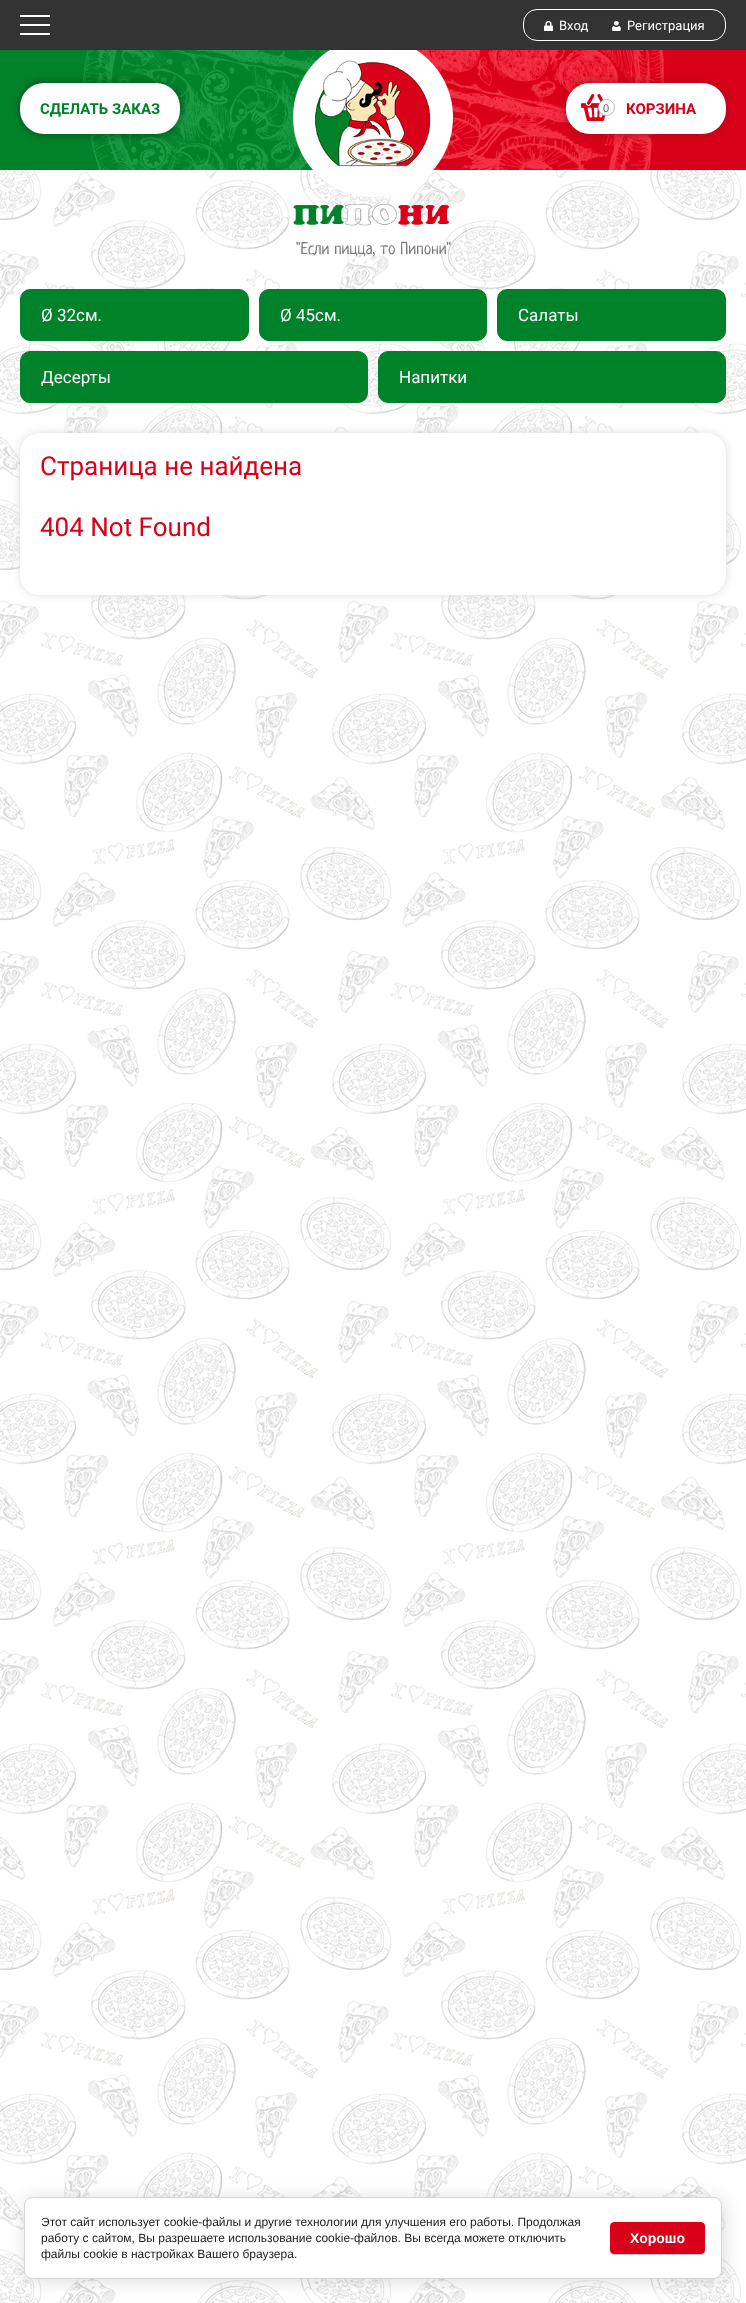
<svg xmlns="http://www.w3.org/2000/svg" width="746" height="2303">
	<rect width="100%" height="100%" fill="#FFFFFF" />
	<image x="0" y="170" width="746" height="2133" href="assets/img1.png" />
	<rect x="0" y="0" width="746" height="50" fill="#333333" />
	<rect x="20" y="15" width="30" height="2" fill="#FFFFFF" />
	<rect x="20" y="33" width="30" height="2" fill="#FFFFFF" />
	<rect x="20" y="24" width="30" height="2" fill="#FFFFFF" />
	<rect x="523.5" y="9.5" width="202" height="31" rx="13.5" fill="none" stroke="#FFFFFF" />
	<image x="544" y="21" width="9" height="10" href="assets/img2.png" />
	<text x="559" y="30" font-family="Roboto" font-size="13" fill="#FFFFFF">Вход</text>
	<image x="612" y="21" width="9" height="10" href="assets/img3.png" />
	<text x="627" y="30" font-family="Roboto" font-size="13" fill="#FFFFFF">Регистрация</text>
	<image x="0" y="50" width="746" height="120" href="assets/img4.png" />
	<rect x="20" y="83" width="160" height="51" rx="24" fill="#034B1A" filter="blur(5px)" />
	<rect x="20" y="83" width="160" height="51" rx="24" fill="#FFFFFF" />
	<text x="40" y="114" font-family="Roboto" font-size="15" font-weight="700" fill="#00822A">СДЕЛАТЬ ЗАКАЗ</text>
	<rect x="566" y="83" width="160" height="51" rx="24" fill="#A50A1B" filter="blur(5px)" />
	<rect x="566" y="83" width="160" height="51" rx="24" fill="#FFFFFF" />
	<image x="581" y="94" width="25" height="27" href="assets/img5.png" />
	<circle cx="606.5" cy="107.5" r="8" fill="#FFFFFF" stroke="#B9B9B9" />
	<text x="603" y="112" font-family="Liberation Sans" font-size="11" fill="#616161">0</text>
	<text x="626" y="114" font-family="Roboto" font-size="15" font-weight="700" fill="#D90119">КОРЗИНА</text>
	<image x="293" y="50" width="160" height="176" href="assets/img6.png" />
	<text x="296" y="254" font-family="Neucha" font-size="17" fill="#7A7A7A">"Если пицца, то Пипони"</text>
	<rect x="20.5" y="289.5" width="228" height="51" rx="9.5" fill="#00822A" stroke="#00822A" />
	<text x="41" y="321" font-family="Roboto" font-size="17" fill="#FFFFFF">Ø 32см.</text>
	<rect x="259.5" y="289.5" width="227" height="51" rx="9.5" fill="#00822A" stroke="#00822A" />
	<text x="280" y="321" font-family="Roboto" font-size="17" fill="#FFFFFF">Ø 45см.</text>
	<rect x="497.5" y="289.5" width="228" height="51" rx="9.5" fill="#00822A" stroke="#00822A" />
	<text x="518" y="321" font-family="Roboto" font-size="17" fill="#FFFFFF">Салаты</text>
	<rect x="20.5" y="351.5" width="347" height="51" rx="9.5" fill="#00822A" stroke="#00822A" />
	<text x="41" y="383" font-family="Roboto" font-size="17" fill="#FFFFFF">Десерты</text>
	<rect x="378.5" y="351.5" width="347" height="51" rx="9.5" fill="#00822A" stroke="#00822A" />
	<text x="399" y="383" font-family="Roboto" font-size="17" fill="#FFFFFF">Напитки</text>
	<rect x="20" y="433" width="706" height="162" rx="20" fill="#D9DCDA" filter="blur(5px)" />
	<rect x="20" y="433" width="706" height="162" rx="20" fill="#FFFFFF" />
	<g font-family="Roboto" font-size="26" fill="#D90119">
		<text x="40" y="475">Страница не найдена</text>
		<text x="40" y="536">404 Not Found</text>
	</g>
	<rect x="26" y="2199" width="698" height="82" rx="8" fill="#000000" fill-opacity="0.14" filter="blur(9px)" />
	<rect x="24.5" y="2197.5" width="697" height="81" rx="7.5" fill="#FFFFFF" stroke="#D6D6D6" />
	<g font-family="Liberation Sans" font-size="12" fill="#212121">
		<text x="41" y="2226">Этот сайт использует cookie-файлы и другие технологии для улучшения его работы. Продолжая</text>
		<text x="41" y="2242">работу с сайтом, Вы разрешаете использование cookie-файлов. Вы всегда можете отключить</text>
		<text x="41" y="2258">файлы cookie в настройках Вашего браузера.</text>
	</g>
	<rect x="610" y="2223" width="95" height="32" rx="4" fill="#000000" fill-opacity="0.2" filter="blur(0.5px)" />
	<rect x="610.5" y="2222.5" width="94" height="31" rx="3.5" fill="#D90119" stroke="#D90119" />
	<text x="630" y="2243" font-family="Liberation Sans" font-size="14" font-weight="700" fill="#FFFFFF">Хорошо</text>
</svg>
